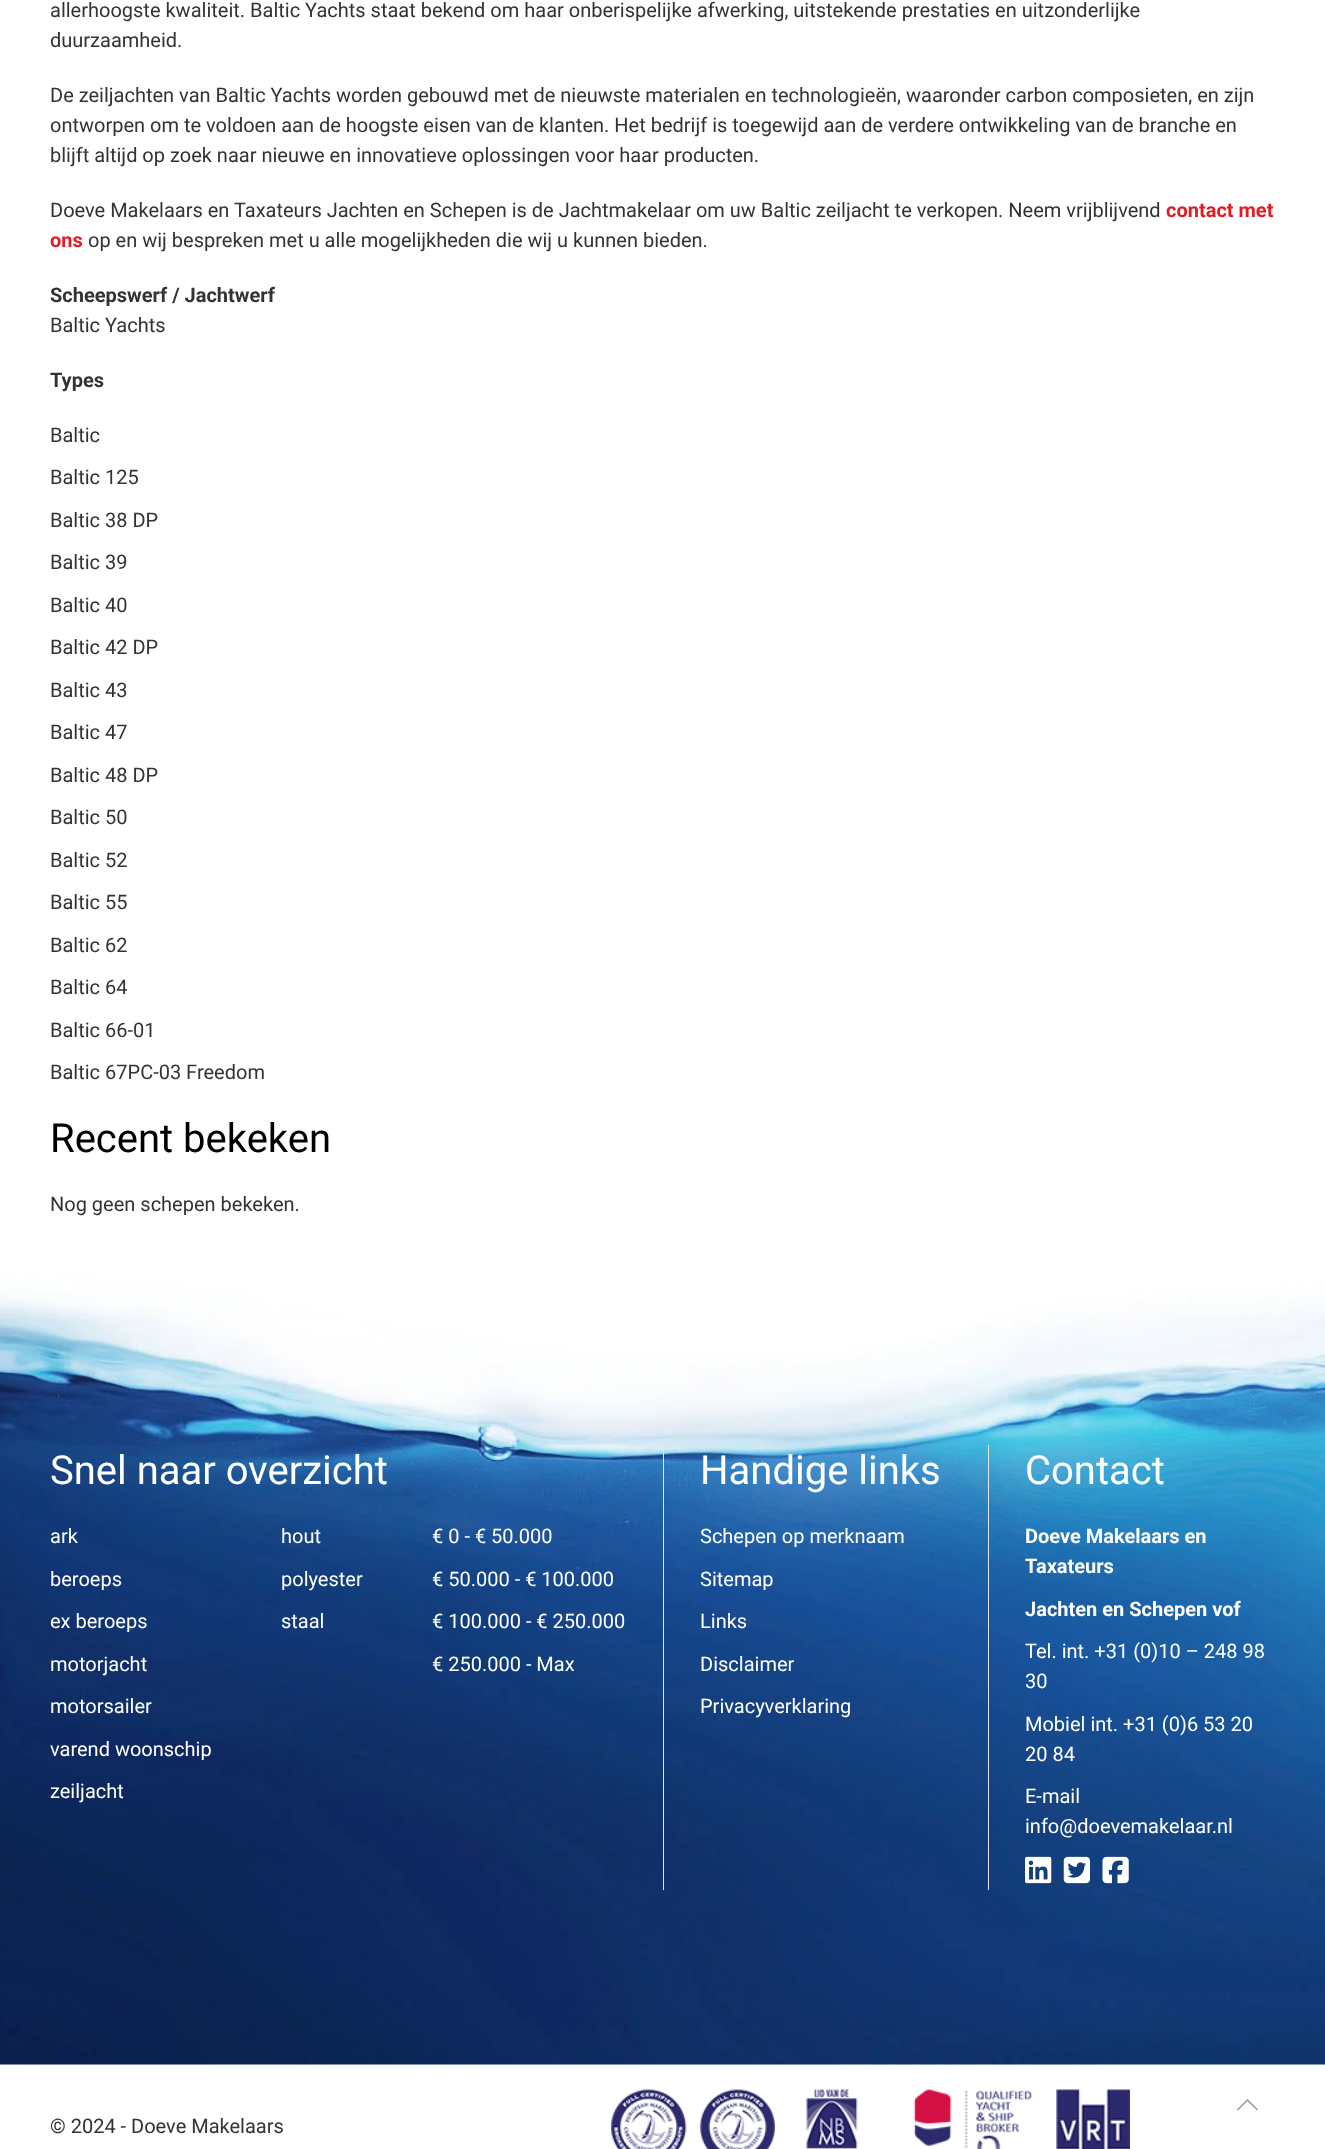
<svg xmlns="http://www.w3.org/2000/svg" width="1325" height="2149">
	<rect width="100%" height="100%" fill="#FFFFFF" />
	<g font-family="Roboto" font-size="20" fill="#333333">
		<text x="50" y="17">allerhoogste kwaliteit. Baltic Yachts staat bekend om haar onberispelijke afwerking, uitstekende prestaties en uitzonderlijke</text>
		<text x="50" y="47">duurzaamheid.</text>
		<text x="50" y="102">De zeiljachten van Baltic Yachts worden gebouwd met de nieuwste materialen en technologieën, waaronder carbon composieten, en zijn</text>
		<text x="50" y="132">ontworpen om te voldoen aan de hoogste eisen van de klanten. Het bedrijf is toegewijd aan de verdere ontwikkeling van de branche en</text>
		<text x="50" y="162">blijft altijd op zoek naar nieuwe en innovatieve oplossingen voor haar producten.</text>
		<text x="50" y="217">Doeve Makelaars en Taxateurs Jachten en Schepen is de Jachtmakelaar om uw Baltic zeiljacht te verkopen. Neem vrijblijvend</text>
	</g>
	<g font-family="Roboto" font-size="20" font-weight="700" fill="#E31C23">
		<text x="1166" y="217">contact met</text>
		<text x="50" y="247">ons</text>
	</g>
	<text x="88" y="247" font-family="Roboto" font-size="20" fill="#333333">op en wij bespreken met u alle mogelijkheden die wij u kunnen bieden.</text>
	<text x="50" y="302" font-family="Roboto" font-size="20" font-weight="700" fill="#333333">Scheepswerf / Jachtwerf</text>
	<text x="50" y="332" font-family="Roboto" font-size="20" fill="#333333">Baltic Yachts</text>
	<text x="50" y="387" font-family="Roboto" font-size="20" font-weight="700" fill="#333333">Types</text>
	<g font-family="Roboto" font-size="20" fill="#333333">
		<text x="50" y="442">Baltic</text>
		<text x="50" y="484">Baltic 125</text>
		<text x="50" y="527">Baltic 38 DP</text>
		<text x="50" y="569">Baltic 39</text>
		<text x="50" y="612">Baltic 40</text>
		<text x="50" y="654">Baltic 42 DP</text>
		<text x="50" y="697">Baltic 43</text>
		<text x="50" y="739">Baltic 47</text>
		<text x="50" y="782">Baltic 48 DP</text>
		<text x="50" y="824">Baltic 50</text>
		<text x="50" y="867">Baltic 52</text>
		<text x="50" y="909">Baltic 55</text>
		<text x="50" y="952">Baltic 62</text>
		<text x="50" y="994">Baltic 64</text>
		<text x="50" y="1037">Baltic 66-01</text>
		<text x="50" y="1079">Baltic 67PC-03 Freedom</text>
	</g>
	<text x="50" y="1152" font-family="Roboto" font-size="40" fill="#000000">Recent bekeken</text>
	<text x="50" y="1211" font-family="Roboto" font-size="20" fill="#333333">Nog geen schepen bekeken.</text>
	<rect x="0" y="2064" width="1325" height="1" fill="#F8F8F8" />
	<image x="0" y="1270" width="1325" height="795" href="assets/img1.png" />
	<text x="50" y="1484" font-family="Roboto" font-size="40" fill="#FFFFFF">Snel naar overzicht</text>
	<g font-family="Roboto" font-size="20" fill="#FFFFFF">
		<text x="50" y="1543">ark</text>
		<text x="50" y="1586">beroeps</text>
		<text x="50" y="1628">ex beroeps</text>
		<text x="50" y="1671">motorjacht</text>
		<text x="50" y="1713">motorsailer</text>
		<text x="50" y="1756">varend woonschip</text>
		<text x="50" y="1798">zeiljacht</text>
		<text x="281" y="1543">hout</text>
		<text x="281" y="1586">polyester</text>
		<text x="281" y="1628">staal</text>
		<text x="432" y="1543">€ 0 - € 50.000</text>
		<text x="432" y="1586">€ 50.000 - € 100.000</text>
		<text x="432" y="1628">€ 100.000 - € 250.000</text>
		<text x="432" y="1671">€ 250.000 - Max</text>
	</g>
	<rect x="663" y="1445" width="1" height="445" fill="#E5E5E5" />
	<text x="700" y="1484" font-family="Roboto" font-size="40" fill="#FFFFFF">Handige links</text>
	<g font-family="Roboto" font-size="20" fill="#FFFFFF">
		<text x="700" y="1543">Schepen op merknaam</text>
		<text x="700" y="1586">Sitemap</text>
		<text x="700" y="1628">Links</text>
		<text x="700" y="1671">Disclaimer</text>
		<text x="700" y="1713">Privacyverklaring</text>
	</g>
	<rect x="988" y="1445" width="1" height="445" fill="#E5E5E5" />
	<text x="1025" y="1484" font-family="Roboto" font-size="40" fill="#FFFFFF">Contact</text>
	<g font-family="Roboto" font-size="20" font-weight="700" fill="#FFFFFF">
		<text x="1025" y="1543">Doeve Makelaars en</text>
		<text x="1025" y="1573">Taxateurs</text>
		<text x="1025" y="1616">Jachten en Schepen vof</text>
	</g>
	<g font-family="Roboto" font-size="20" fill="#FFFFFF">
		<text x="1025" y="1658">Tel. int. +31 (0)10 – 248 98</text>
		<text x="1025" y="1688">30</text>
		<text x="1025" y="1731">Mobiel int. +31 (0)6 53 20</text>
		<text x="1025" y="1761">20 84</text>
		<text x="1025" y="1803">E-mail</text>
		<text x="1025" y="1833">info@doevemakelaar.nl</text>
	</g>
	<image x="1025" y="1856" width="27" height="28" href="assets/img2.png" />
	<image x="1063" y="1856" width="27" height="28" href="assets/img3.png" />
	<image x="1102" y="1856" width="27" height="28" href="assets/img4.png" />
	<text x="50" y="2133" font-family="Roboto" font-size="20" fill="#333333">© 2024 - Doeve Makelaars</text>
	<image x="611" y="2089" width="164" height="60" href="assets/img5.png" />
	<image x="806" y="2089" width="52" height="60" href="assets/img6.png" />
	<image x="913" y="2089" width="119" height="60" href="assets/img7.png" />
	<image x="1056" y="2089" width="74" height="60" href="assets/img8.png" />
	<path d="M1237.5 2110L1247.5 2100L1257.5 2110" fill="none" stroke="#999999" stroke-width="1.5" />
</svg>
